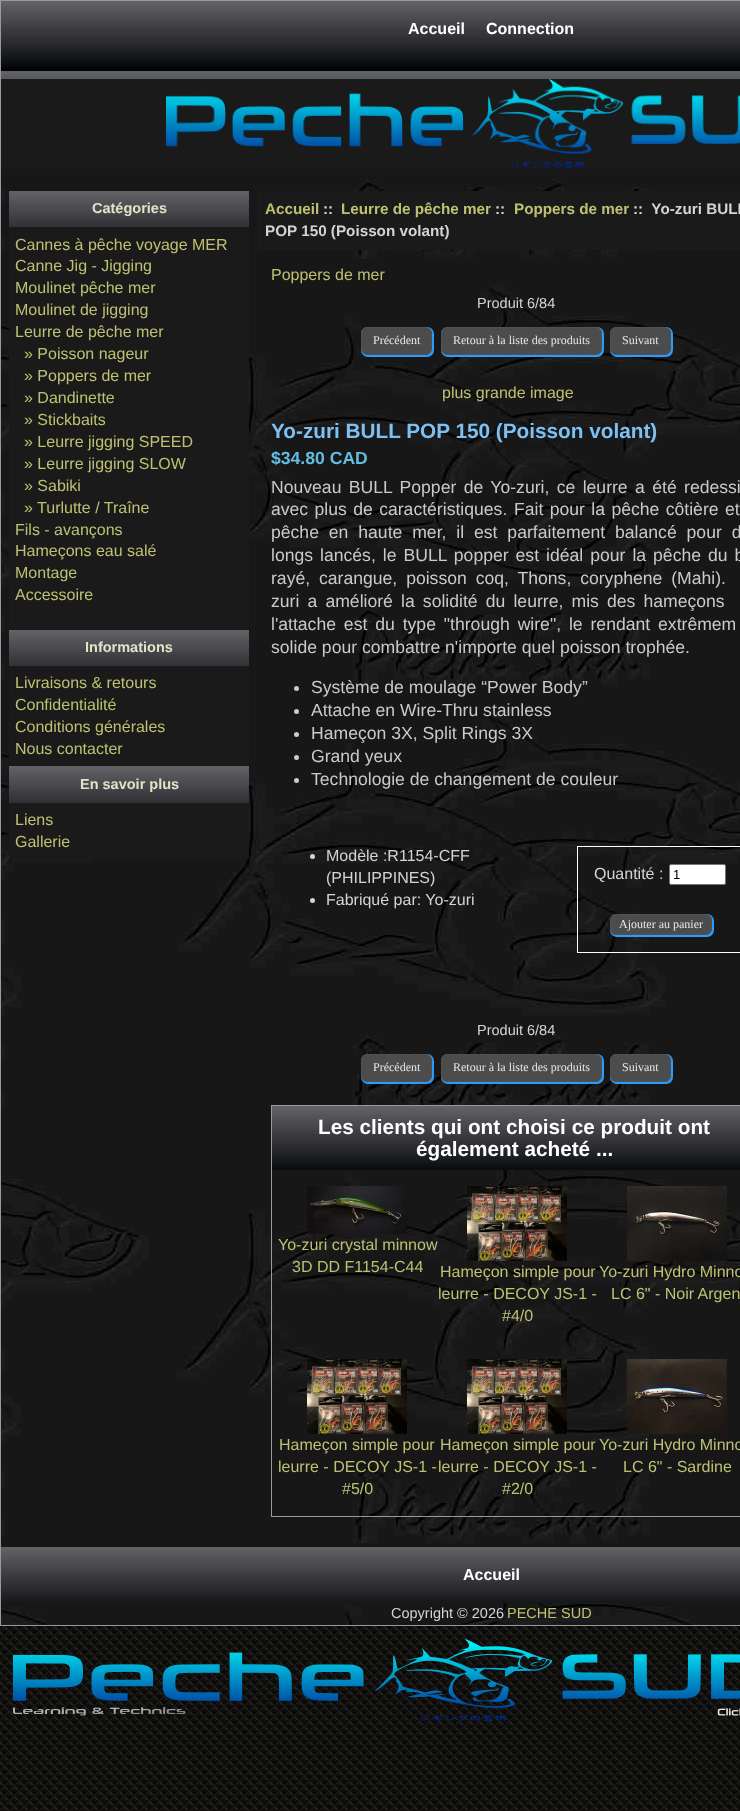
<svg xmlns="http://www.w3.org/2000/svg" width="740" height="1811">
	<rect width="100%" height="100%" fill="#FFFFFF" />
	<image x="0" y="1626" width="740" height="185" href="assets/img1.png" />
	<image x="1" y="169" width="739" height="1456" href="assets/img2.png" />
	<rect x="0.5" y="0.5" width="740" height="1625" fill="none" stroke="#9A9A9A" />
	<image x="1" y="1" width="739" height="78" href="assets/img3.png" />
	<g font-family="Liberation Sans" font-size="16" font-weight="700" fill="#FFFFFF">
		<text x="408" y="34">Accueil</text>
		<text x="486" y="34">Connection</text>
	</g>
	<rect x="1" y="79" width="739" height="90" fill="#1A1A1A" />
	<image x="166" y="79" width="574" height="89" href="assets/img4.png" />
	<image x="9" y="191" width="240" height="36" href="assets/img5.png" />
	<text x="92" y="213" font-family="Liberation Sans" font-size="14.5" font-weight="700" fill="#E1E4C7">Catégories</text>
	<rect x="9" y="227" width="240" height="403" fill="#1A1A1A" />
	<g font-family="Liberation Sans" font-size="16" fill="#BEC172">
		<text x="15" y="250">Cannes à pêche voyage MER</text>
		<text x="15" y="271">Canne Jig - Jigging</text>
		<text x="15" y="293">Moulinet pêche mer</text>
		<text x="15" y="315">Moulinet de jigging</text>
		<text x="15" y="337">Leurre de pêche mer</text>
		<text x="24" y="359">» Poisson nageur</text>
		<text x="24" y="381">» Poppers de mer</text>
		<text x="24" y="403">» Dandinette</text>
		<text x="24" y="425">» Stickbaits</text>
		<text x="24" y="447">» Leurre jigging SPEED</text>
		<text x="24" y="469">» Leurre jigging SLOW</text>
		<text x="24" y="491">» Sabiki</text>
		<text x="24" y="513">» Turlutte / Traîne</text>
		<text x="15" y="535">Fils - avançons</text>
		<text x="15" y="556">Hameçons eau salé</text>
		<text x="15" y="578">Montage</text>
		<text x="15" y="600">Accessoire</text>
	</g>
	<image x="9" y="630" width="240" height="36" href="assets/img5.png" />
	<text x="85" y="652" font-family="Liberation Sans" font-size="14.5" font-weight="700" fill="#E1E4C7">Informations</text>
	<rect x="9" y="666" width="240" height="100" fill="#1A1A1A" />
	<g font-family="Liberation Sans" font-size="16" fill="#BEC172">
		<text x="15" y="688">Livraisons &amp; retours</text>
		<text x="15" y="710">Confidentialité</text>
		<text x="15" y="732">Conditions générales</text>
		<text x="15" y="754">Nous contacter</text>
	</g>
	<image x="9" y="766" width="240" height="37" href="assets/img6.png" />
	<text x="80" y="789" font-family="Liberation Sans" font-size="14.5" font-weight="700" fill="#E1E4C7">En savoir plus</text>
	<rect x="9" y="803" width="240" height="56" fill="#1A1A1A" />
	<g font-family="Liberation Sans" font-size="16" fill="#BEC172">
		<text x="15" y="825">Liens</text>
		<text x="15" y="847">Gallerie</text>
	</g>
	<rect x="257" y="191" width="483" height="59" fill="#1A1A1A" />
	<text x="265" y="214" font-family="Liberation Sans" font-size="15.25" font-weight="700" fill="#BEC172">Accueil</text>
	<text x="323" y="214" font-family="Liberation Sans" font-size="15.25" font-weight="700" fill="#D4D4D4">::</text>
	<text x="341" y="214" font-family="Liberation Sans" font-size="15.25" font-weight="700" fill="#BEC172">Leurre de pêche mer</text>
	<text x="495" y="214" font-family="Liberation Sans" font-size="15.25" font-weight="700" fill="#D4D4D4">::</text>
	<text x="514" y="214" font-family="Liberation Sans" font-size="15.25" font-weight="700" fill="#BEC172">Poppers de mer</text>
	<g font-family="Liberation Sans" font-size="15.25" font-weight="700" fill="#D4D4D4">
		<text x="633" y="214" xml:space="preserve">::  Yo-zuri BULL</text>
		<text x="265" y="236">POP 150 (Poisson volant)</text>
	</g>
	<text x="271" y="280" font-family="Liberation Sans" font-size="16" fill="#BEC172">Poppers de mer</text>
	<text x="477" y="308" font-family="Liberation Sans" font-size="14.5" fill="#D4D4D4">Produit 6/84</text>
	<rect x="361" y="327" width="73" height="30" rx="7" fill="#279DFF" filter="blur(0.5px)" />
	<rect x="361.5" y="327.5" width="70" height="27" rx="5.5" fill="#4C4C4C" stroke="#525050" />
	<text x="373" y="344" font-family="Liberation Serif" font-size="12" fill="#E8E8E8">Précédent</text>
	<rect x="441" y="327" width="163" height="30" rx="7" fill="#279DFF" filter="blur(0.5px)" />
	<rect x="441.5" y="327.5" width="160" height="27" rx="5.5" fill="#4C4C4C" stroke="#525050" />
	<text x="453" y="344" font-family="Liberation Serif" font-size="12" fill="#E8E8E8">Retour à la liste des produits</text>
	<rect x="610" y="327" width="63" height="30" rx="7" fill="#279DFF" filter="blur(0.5px)" />
	<rect x="610.5" y="327.5" width="60" height="27" rx="5.5" fill="#4C4C4C" stroke="#525050" />
	<text x="622" y="344" font-family="Liberation Serif" font-size="12" fill="#E8E8E8">Suivant</text>
	<text x="442" y="398" font-family="Liberation Sans" font-size="16" fill="#BEC172">plus grande image</text>
	<text x="271" y="438" font-family="Liberation Sans" font-size="20.75" font-weight="700" fill="#7DC0F4">Yo-zuri BULL POP 150 (Poisson volant)</text>
	<text x="271" y="464" font-family="Liberation Sans" font-size="17.6" font-weight="700" fill="#61BDE2">$34.80 CAD</text>
	<g font-family="Liberation Sans" font-size="17.6" fill="#CACACA">
		<text x="271" y="493" word-spacing="2.5">Nouveau BULL Popper de Yo-zuri, ce leurre a été redessi</text>
		<text x="271" y="515" word-spacing="1.5">avec plus de caractéristiques.</text>
		<text x="514" y="515" word-spacing="1.5">Fait pour la pêche côtière et</text>
		<text x="271" y="538" word-spacing="5">pêche en haute mer, il est parfaitement balancé pour d</text>
		<text x="271" y="561" word-spacing="2.1">longs lancés, le BULL popper est idéal pour la pêche du b</text>
		<text x="271" y="584" word-spacing="4">rayé, carangue, poisson coq, Thons, coryphene (Mahi).</text>
		<text x="271" y="607" word-spacing="3.25">zuri a amélioré la solidité du leurre, mis des hameçons</text>
		<text x="271" y="630" word-spacing="3">l'attache est du type "through wire", le rendant extrêmem</text>
		<text x="271" y="653">solide pour combattre n'importe quel poisson trophée.</text>
	</g>
	<circle cx="296.5" cy="688.5" r="2.5" fill="#CACACA" />
	<text x="311" y="693" font-family="Liberation Sans" font-size="17.6" fill="#CACACA">Système de moulage “Power Body”</text>
	<circle cx="296.5" cy="711.5" r="2.5" fill="#CACACA" />
	<text x="311" y="716" font-family="Liberation Sans" font-size="17.6" fill="#CACACA">Attache en Wire-Thru stainless</text>
	<circle cx="296.5" cy="734.5" r="2.5" fill="#CACACA" />
	<text x="311" y="739" font-family="Liberation Sans" font-size="17.6" fill="#CACACA">Hameçon 3X, Split Rings 3X</text>
	<circle cx="296.5" cy="757.5" r="2.5" fill="#CACACA" />
	<text x="311" y="762" font-family="Liberation Sans" font-size="17.6" fill="#CACACA">Grand yeux</text>
	<circle cx="296.5" cy="780.5" r="2.5" fill="#CACACA" />
	<text x="311" y="785" font-family="Liberation Sans" font-size="17.6" fill="#CACACA">Technologie de changement de couleur</text>
	<circle cx="312.5" cy="856.5" r="2.5" fill="#D4D4D4" />
	<g font-family="Liberation Sans" font-size="16" fill="#D4D4D4">
		<text x="326" y="861">Modèle :R1154-CFF</text>
		<text x="326" y="883">(PHILIPPINES)</text>
	</g>
	<circle cx="312.5" cy="900.5" r="2.5" fill="#D4D4D4" />
	<text x="326" y="905" font-family="Liberation Sans" font-size="16" fill="#D4D4D4">Fabriqué par: Yo-zuri</text>
	<rect x="577.5" y="846.5" width="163" height="106" fill="none" stroke="#FFFFFF" />
	<text x="594" y="879" font-family="Liberation Sans" font-size="16" fill="#D4D4D4">Quantité :</text>
	<rect x="669.5" y="864.5" width="56" height="20" rx="1.5" fill="#FFFFFF" stroke="#767676" />
	<text x="673" y="879" font-family="Liberation Sans" font-size="13" fill="#000000">1</text>
	<rect x="610" y="914" width="104" height="23" rx="7" fill="#279DFF" filter="blur(0.5px)" />
	<rect x="610.5" y="914.5" width="101" height="20" rx="5.5" fill="#4C4C4C" stroke="#525050" />
	<text x="619" y="928" font-family="Liberation Serif" font-size="12" fill="#E8E8E8">Ajouter au panier</text>
	<text x="477" y="1035" font-family="Liberation Sans" font-size="14.5" fill="#D4D4D4">Produit 6/84</text>
	<rect x="361" y="1054" width="73" height="30" rx="7" fill="#279DFF" filter="blur(0.5px)" />
	<rect x="361.5" y="1054.5" width="70" height="27" rx="5.5" fill="#4C4C4C" stroke="#525050" />
	<text x="373" y="1071" font-family="Liberation Serif" font-size="12" fill="#E8E8E8">Précédent</text>
	<rect x="441" y="1054" width="163" height="30" rx="7" fill="#279DFF" filter="blur(0.5px)" />
	<rect x="441.5" y="1054.5" width="160" height="27" rx="5.5" fill="#4C4C4C" stroke="#525050" />
	<text x="453" y="1071" font-family="Liberation Serif" font-size="12" fill="#E8E8E8">Retour à la liste des produits</text>
	<rect x="610" y="1054" width="63" height="30" rx="7" fill="#279DFF" filter="blur(0.5px)" />
	<rect x="610.5" y="1054.5" width="60" height="27" rx="5.5" fill="#4C4C4C" stroke="#525050" />
	<text x="622" y="1071" font-family="Liberation Serif" font-size="12" fill="#E8E8E8">Suivant</text>
	<rect x="271.5" y="1105.5" width="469" height="411" fill="none" stroke="#9A9A9A" />
	<image x="272" y="1106" width="468" height="64" href="assets/img7.png" />
	<g font-family="Liberation Sans" font-size="20.75" font-weight="700" fill="#FFFFFF">
		<text x="318" y="1134">Les clients qui ont choisi ce produit ont</text>
		<text x="416" y="1156">également acheté ...</text>
	</g>
	<image x="307" y="1186" width="100" height="48" href="assets/img8.png" />
	<g font-family="Liberation Sans" font-size="16" fill="#BEC172">
		<text x="278" y="1250">Yo-zuri crystal minnow</text>
		<text x="292" y="1272">3D DD F1154-C44</text>
	</g>
	<image x="467" y="1186" width="100" height="75" href="assets/img9.png" />
	<g font-family="Liberation Sans" font-size="16" fill="#BEC172">
		<text x="440" y="1277">Hameçon simple pour</text>
		<text x="438" y="1299">leurre - DECOY JS-1 -</text>
		<text x="502" y="1321">#4/0</text>
	</g>
	<image x="627" y="1186" width="100" height="75" href="assets/img10.png" />
	<g font-family="Liberation Sans" font-size="16" fill="#BEC172">
		<text x="599" y="1277">Yo-zuri Hydro Minno</text>
		<text x="611" y="1299">LC 6" - Noir Argen</text>
	</g>
	<image x="307" y="1359" width="100" height="75" href="assets/img9.png" />
	<g font-family="Liberation Sans" font-size="16" fill="#BEC172">
		<text x="279" y="1450">Hameçon simple pour</text>
		<text x="278" y="1472">leurre - DECOY JS-1 -</text>
		<text x="342" y="1494">#5/0</text>
	</g>
	<image x="467" y="1359" width="100" height="75" href="assets/img9.png" />
	<g font-family="Liberation Sans" font-size="16" fill="#BEC172">
		<text x="440" y="1450">Hameçon simple pour</text>
		<text x="438" y="1472">leurre - DECOY JS-1 -</text>
		<text x="502" y="1494">#2/0</text>
	</g>
	<image x="627" y="1359" width="100" height="75" href="assets/img11.png" />
	<g font-family="Liberation Sans" font-size="16" fill="#BEC172">
		<text x="599" y="1450">Yo-zuri Hydro Minno</text>
		<text x="623" y="1472">LC 6" - Sardine</text>
	</g>
	<image x="1" y="1547" width="739" height="56" href="assets/img12.png" />
	<text x="463" y="1580" font-family="Liberation Sans" font-size="16" font-weight="700" fill="#FFFFFF">Accueil</text>
	<text x="391" y="1618" font-family="Liberation Sans" font-size="14.5" fill="#D4D4D4">Copyright © 2026</text>
	<text x="507" y="1618" font-family="Liberation Sans" font-size="14.5" fill="#BEC172">PECHE SUD</text>
	<image x="13" y="1639" width="727" height="82" href="assets/img13.png" />
</svg>
